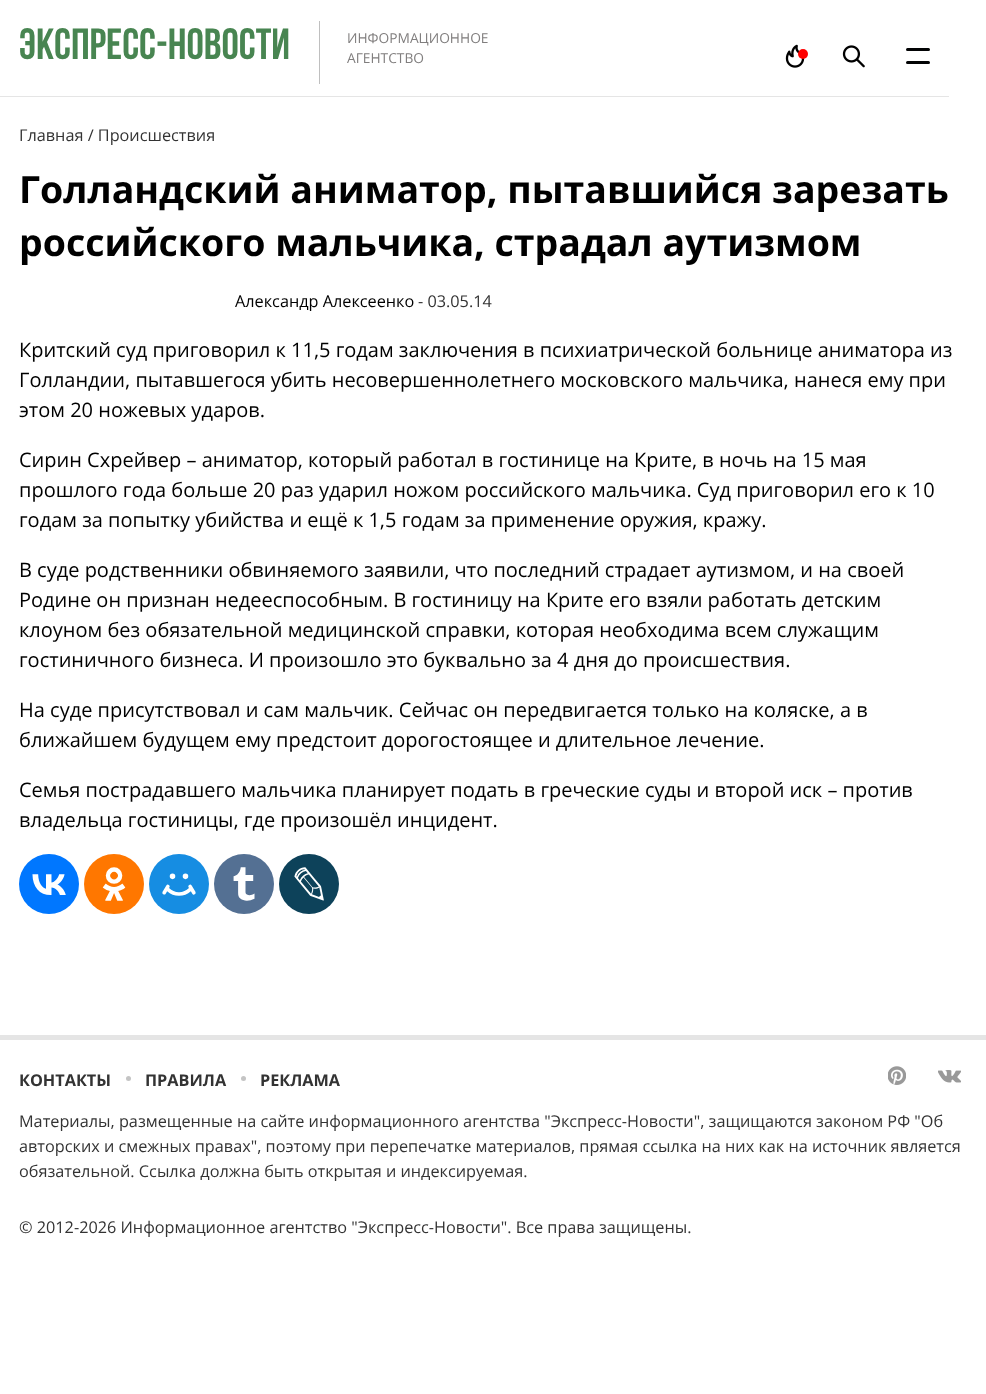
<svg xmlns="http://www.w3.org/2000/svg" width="986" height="1394">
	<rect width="100%" height="100%" fill="#FFFFFF" />
	<rect x="0" y="96" width="949" height="1" fill="#E5E5E5" />
	<text x="19" y="59" font-family="Bebas Neue" font-size="43.75" font-weight="700" fill="#488551">экспресс-новости</text>
	<rect x="319" y="21" width="1" height="63" fill="#BFBFBF" />
	<g font-family="Open Sans" font-size="13.75" fill="#807E7E">
		<text x="347" y="43">ИНФОРМАЦИОННОЕ</text>
		<text x="347" y="63">АГЕНТСТВО</text>
	</g>
	<image x="785" y="44" width="20" height="24" href="assets/img1.png" />
	<circle cx="803" cy="54" r="5" fill="#FF0000" />
	<image x="842" y="45" width="23" height="23" href="assets/img2.png" />
	<rect x="906" y="48" width="24" height="3" rx="1.5" fill="#020304" />
	<rect x="906" y="61" width="24" height="3" rx="1.5" fill="#020304" />
	<text x="19" y="141" font-family="Open Sans" font-size="16.25" fill="#333333">Главная / Происшествия</text>
	<g font-family="Open Sans" font-size="37.5" font-weight="700" fill="#000000">
		<text x="19" y="203">Голландский аниматор, пытавшийся зарезать</text>
		<text x="19" y="256">российского мальчика, страдал аутизмом</text>
	</g>
	<text x="235" y="307" font-family="Open Sans" font-size="16.25" fill="#000000">Александр Алексеенко</text>
	<text x="418" y="307" font-family="Open Sans" font-size="16.25" fill="#333333">- 03.05.14</text>
	<g font-family="Open Sans" font-size="20" fill="#000000">
		<text x="19" y="357">Критский суд приговорил к 11,5 годам заключения в психиатрической больнице аниматора из</text>
		<text x="19" y="387">Голландии, пытавшегося убить несовершеннолетнего московского мальчика, нанеся ему при</text>
		<text x="19" y="417">этом 20 ножевых ударов.</text>
		<text x="19" y="467">Сирин Схрейвер – аниматор, который работал в гостинице на Крите, в ночь на 15 мая</text>
		<text x="19" y="497">прошлого года больше 20 раз ударил ножом российского мальчика. Суд приговорил его к 10</text>
		<text x="19" y="527">годам за попытку убийства и ещё к 1,5 годам за применение оружия, кражу.</text>
		<text x="19" y="577">В суде родственники обвиняемого заявили, что последний страдает аутизмом, и на своей</text>
		<text x="19" y="607">Родине он признан недееспособным. В гостиницу на Крите его взяли работать детским</text>
		<text x="19" y="637">клоуном без обязательной медицинской справки, которая необходима всем служащим</text>
		<text x="19" y="667">гостиничного бизнеса. И произошло это буквально за 4 дня до происшествия.</text>
		<text x="19" y="717">На суде присутствовал и сам мальчик. Сейчас он передвигается только на коляске, а в</text>
		<text x="19" y="747">ближайшем будущем ему предстоит дорогостоящее и длительное лечение.</text>
		<text x="19" y="797">Семья пострадавшего мальчика планирует подать в греческие суды и второй иск – против</text>
		<text x="19" y="827">владельца гостиницы, где произошёл инцидент.</text>
	</g>
	<circle cx="49" cy="884" r="30" fill="#0077FF" />
	<image x="32" y="874" width="34" height="21" href="assets/img3.png" />
	<circle cx="114" cy="884" r="30" fill="#FF7700" />
	<image x="102" y="867" width="24" height="34" href="assets/img4.png" />
	<circle cx="179" cy="884" r="30" fill="#168DE2" />
	<image x="162" y="873" width="34" height="23" href="assets/img5.png" />
	<circle cx="244" cy="884" r="30" fill="#547093" />
	<image x="233" y="867" width="22" height="34" href="assets/img6.png" />
	<circle cx="309" cy="884" r="30" fill="#0D425A" />
	<image x="294" y="867" width="30" height="34" href="assets/img7.png" />
	<rect x="0" y="1035" width="986" height="5" fill="#E5E5E5" />
	<text x="19" y="1086" font-family="Open Sans" font-size="16.25" font-weight="700" fill="#333333">КОНТАКТЫ</text>
	<circle cx="128.5" cy="1078.5" r="2.5" fill="#C4C4C4" />
	<text x="145" y="1086" font-family="Open Sans" font-size="16.25" font-weight="700" fill="#333333">ПРАВИЛА</text>
	<circle cx="243.5" cy="1078.5" r="2.5" fill="#C4C4C4" />
	<text x="260" y="1086" font-family="Open Sans" font-size="16.25" font-weight="700" fill="#333333">РЕКЛАМА</text>
	<image x="888" y="1066" width="18" height="19" href="assets/img8.png" />
	<image x="938" y="1070" width="23" height="13" href="assets/img9.png" />
	<g font-family="Open Sans" font-size="16.25" fill="#333333">
		<text x="19" y="1127">Материалы, размещенные на сайте информационного агентства "Экспресс-Новости", защищаются законом РФ "Об</text>
		<text x="19" y="1152">авторских и смежных правах", поэтому при перепечатке материалов, прямая ссылка на них как на источник является</text>
		<text x="19" y="1177">обязательной. Ссылка должна быть открытая и индексируемая.</text>
		<text x="19" y="1233">© 2012-2026 Информационное агентство "Экспресс-Новости". Все права защищены.</text>
	</g>
</svg>
